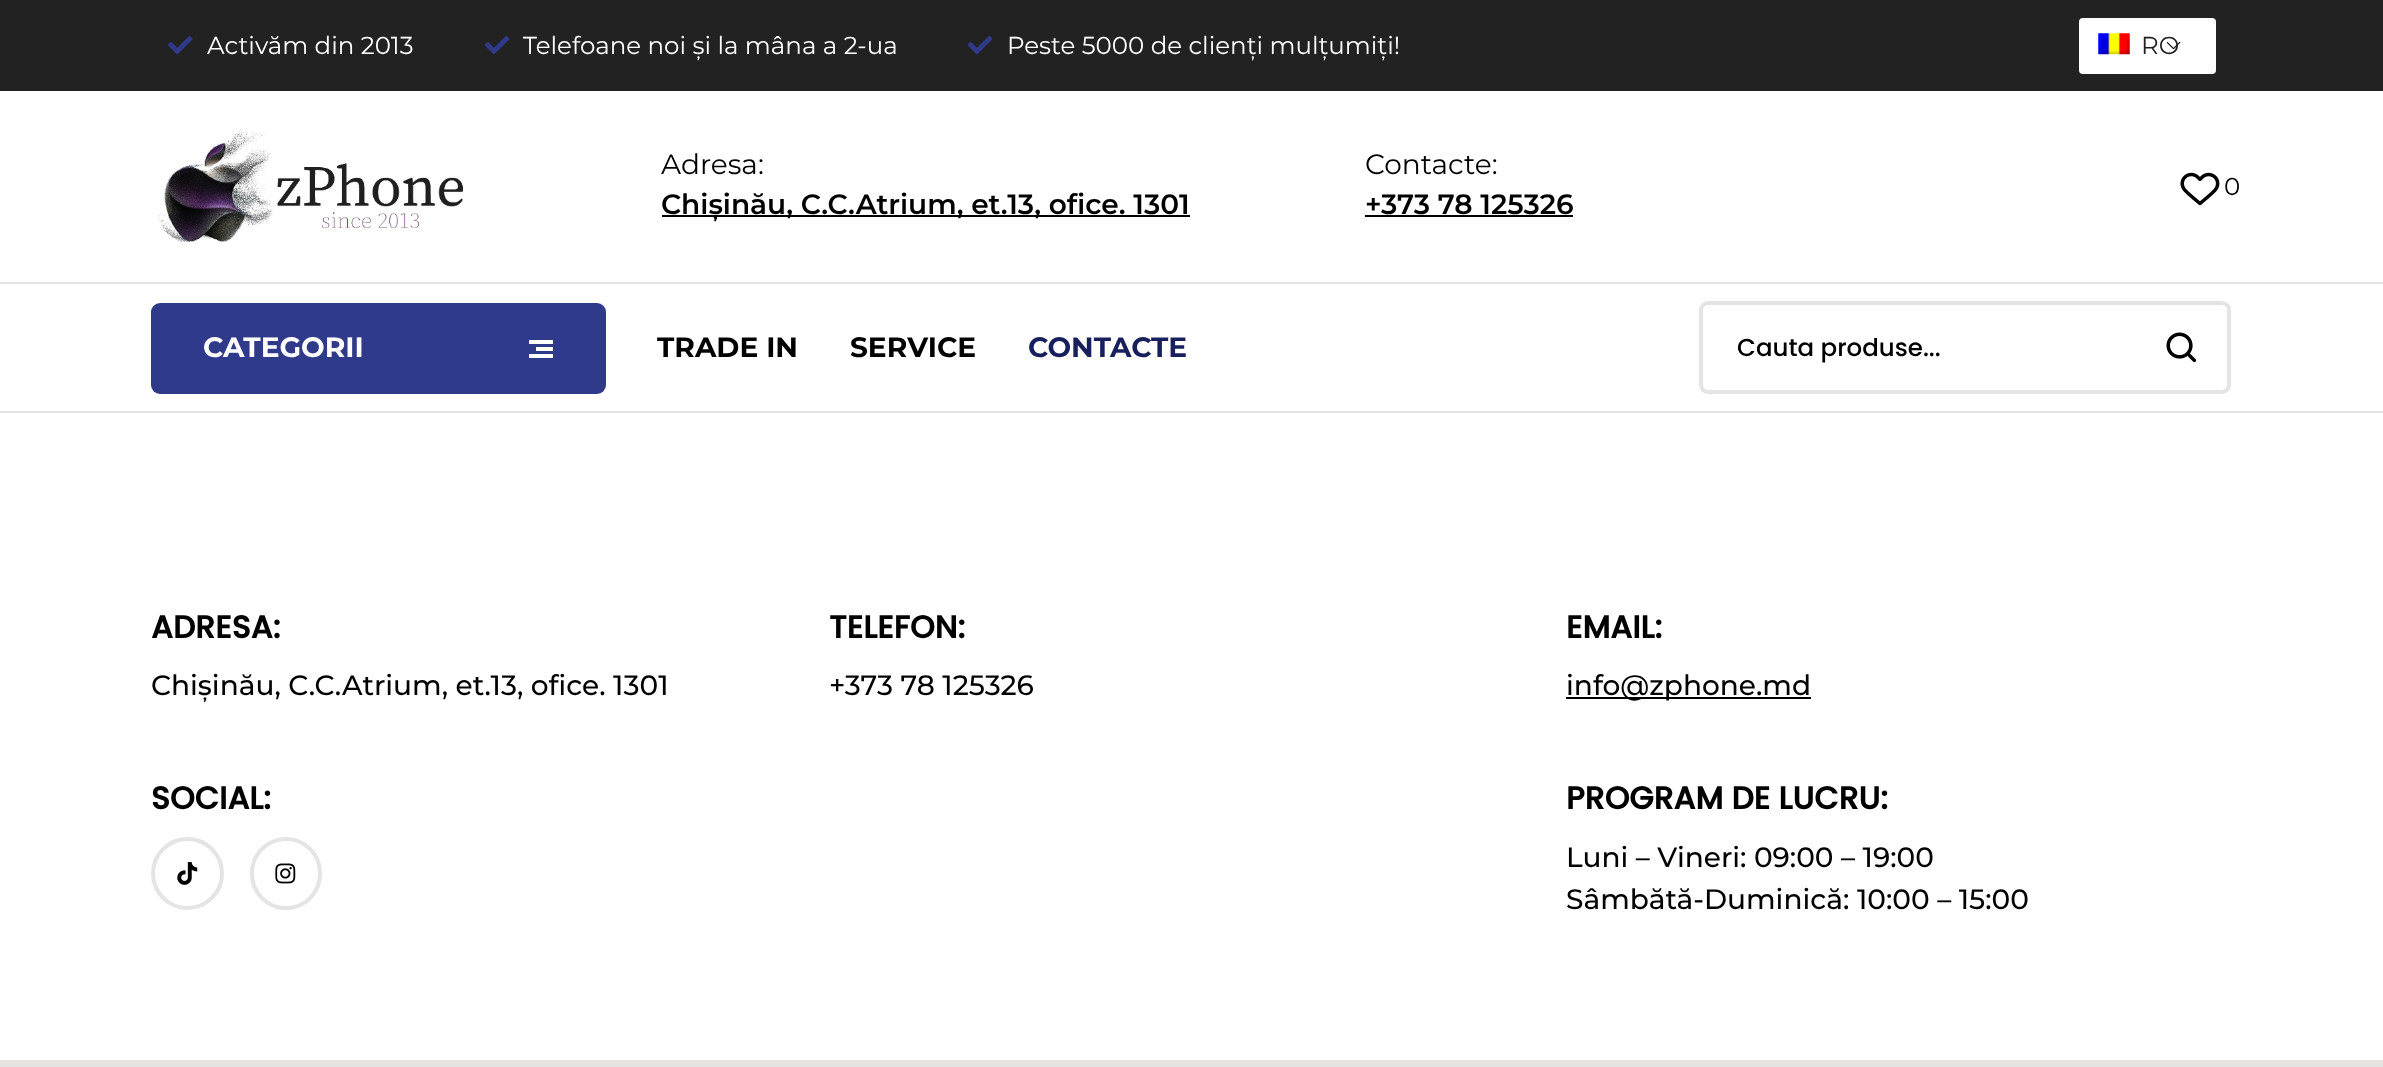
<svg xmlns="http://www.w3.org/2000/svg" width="2383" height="1067">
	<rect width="100%" height="100%" fill="#FFFFFF" />
	<rect x="0" y="0" width="2383" height="91" fill="#222222" />
	<image x="168" y="36" width="25" height="19" href="assets/img1.png" />
	<text x="207" y="54" font-family="Montserrat" font-size="24.5" fill="#FFFFFF">Activăm din 2013</text>
	<image x="484" y="36" width="26" height="19" href="assets/img2.png" />
	<text x="523" y="54" font-family="Montserrat" font-size="24.5" fill="#FFFFFF">Telefoane noi și la mâna a 2-ua</text>
	<image x="967" y="36" width="26" height="19" href="assets/img2.png" />
	<text x="1007" y="54" font-family="Montserrat" font-size="24.5" fill="#FFFFFF">Peste 5000 de clienți mulțumiți!</text>
	<rect x="2079" y="18" width="137" height="56" rx="4" fill="#FFFFFF" />
	<image x="2167" y="41" width="14" height="9" href="assets/img3.png" />
	<image x="2098" y="33" width="32" height="22" href="assets/img4.png" />
	<text x="2141" y="54" font-family="Montserrat" font-size="24.5" fill="#1E1E1E">RO</text>
	<image x="158" y="132" width="306" height="111" href="assets/img5.png" />
	<text x="661" y="174" font-family="Montserrat" font-size="28" fill="#000000">Adresa:</text>
	<rect x="662" y="215" width="528" height="2" fill="#000000" />
	<text x="661" y="214" font-family="Montserrat" font-size="28" font-weight="600" fill="#000000">Chișinău, C.C.Atrium, et.13, ofice. 1301</text>
	<text x="1365" y="174" font-family="Montserrat" font-size="28" fill="#000000">Contacte:</text>
	<text x="1365" y="214" font-family="Montserrat" font-size="28" font-weight="600" fill="#000000">+373 78 125326</text>
	<rect x="1365" y="215" width="208" height="2" fill="#000000" />
	<image x="2180" y="172" width="40" height="34" href="assets/img6.png" />
	<text x="2224" y="195" font-family="Montserrat" font-size="24.5" fill="#000000">0</text>
	<rect x="0" y="282" width="2383" height="2" fill="#E4E4E4" />
	<rect x="0" y="411" width="2383" height="2" fill="#E4E4E4" />
	<rect x="151" y="303" width="455" height="91" rx="9" fill="#303A8A" />
	<text x="203" y="357" font-family="Montserrat" font-size="28" font-weight="700" fill="#FFFFFF">CATEGORII</text>
	<rect x="529" y="340" width="24" height="4" fill="#FFFFFF" />
	<rect x="536" y="347" width="17" height="4" fill="#FFFFFF" />
	<rect x="529" y="354" width="24" height="4" fill="#FFFFFF" />
	<g font-family="Montserrat" font-size="28" font-weight="700" fill="#000000">
		<text x="657" y="357">TRADE IN</text>
		<text x="850" y="357">SERVICE</text>
	</g>
	<text x="1028" y="357" font-family="Montserrat" font-size="28" font-weight="700" fill="#171F5C">CONTACTE</text>
	<rect x="1701" y="303" width="528" height="89" rx="7" fill="none" stroke="#E4E4E4" stroke-width="4" />
	<text x="1737" y="356" font-family="Poppins" font-size="24.5" font-weight="500" fill="#000000">Cauta produse...</text>
	<image x="2166" y="332" width="31" height="31" href="assets/img7.png" />
	<text x="151" y="638" font-family="Poppins" font-size="31.5" font-weight="700" fill="#000000">ADRESA:</text>
	<text x="151" y="695" font-family="Montserrat" font-size="28" font-weight="500" fill="#000000">Chișinău, C.C.Atrium, et.13, ofice. 1301</text>
	<text x="151" y="809" font-family="Poppins" font-size="31.5" font-weight="700" fill="#000000">SOCIAL:</text>
	<circle cx="187.5" cy="873.5" r="34.5" fill="none" stroke="#E4E4E4" stroke-width="4" />
	<image x="177" y="862" width="21" height="23" href="assets/img8.png" />
	<rect x="252" y="839" width="68" height="69" rx="34" fill="none" stroke="#E4E4E4" stroke-width="4" />
	<image x="275" y="863" width="21" height="21" href="assets/img9.png" />
	<text x="829" y="638" font-family="Poppins" font-size="31.5" font-weight="700" fill="#000000">TELEFON:</text>
	<text x="829" y="695" font-family="Montserrat" font-size="28" font-weight="500" fill="#000000">+373 78 125326</text>
	<text x="1566" y="638" font-family="Poppins" font-size="31.5" font-weight="700" fill="#000000">EMAIL:</text>
	<rect x="1566" y="697" width="245" height="2" fill="#000000" />
	<text x="1566" y="695" font-family="Montserrat" font-size="28" font-weight="500" fill="#000000">info@zphone.md</text>
	<text x="1566" y="809" font-family="Poppins" font-size="31.5" font-weight="700" fill="#000000">PROGRAM DE LUCRU:</text>
	<g font-family="Montserrat" font-size="28" font-weight="500" fill="#000000">
		<text x="1566" y="867">Luni – Vineri: 09:00 – 19:00</text>
		<text x="1566" y="909">Sâmbătă-Duminică: 10:00 – 15:00</text>
	</g>
	<rect x="0" y="1060" width="2383" height="7" fill="#E5E3DF" />
</svg>
